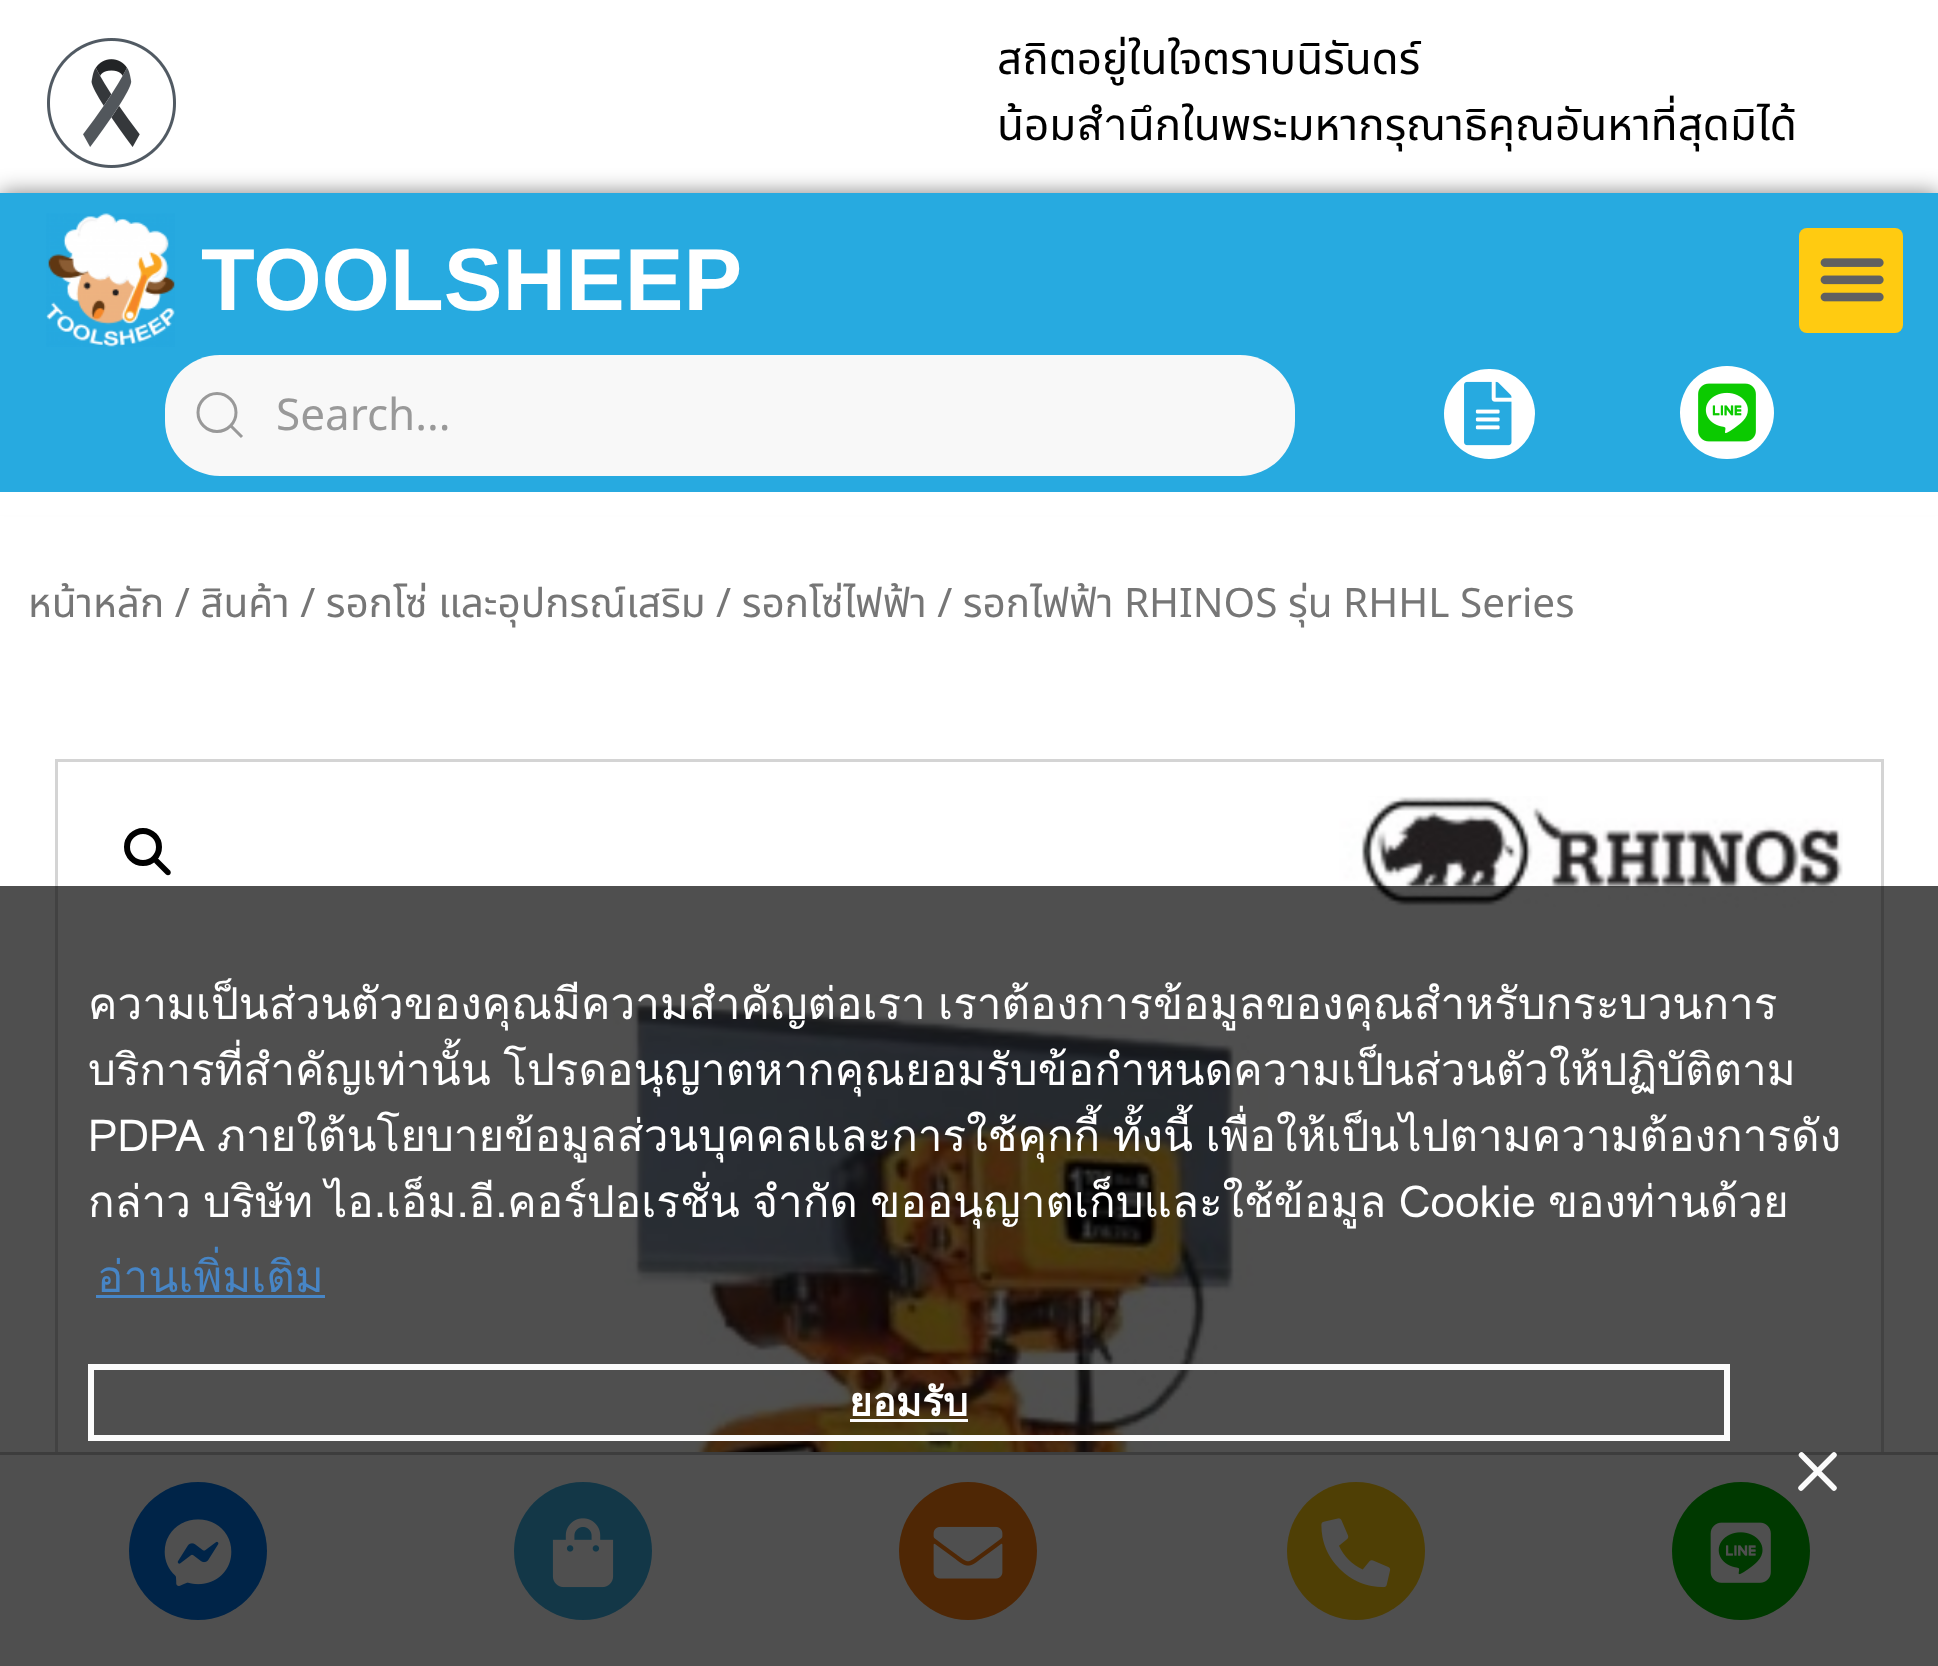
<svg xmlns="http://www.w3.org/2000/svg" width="1938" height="1666">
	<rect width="100%" height="100%" fill="#FFFFFF" />
	<image x="47" y="38" width="129" height="130" href="assets/img1.png" />
	<g font-family="Noto Sans Thai" font-size="44" fill="#000000">
		<text x="997" y="74">สถิตอยู่ในใจตราบนิรันดร์</text>
		<text x="997" y="140">น้อมสำนึกในพระมหากรุณาธิคุณอันหาที่สุดมิได้</text>
	</g>
	<rect x="0" y="193" width="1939" height="299" fill="#000000" fill-opacity="0.5" filter="blur(11px)" />
	<rect x="0" y="193" width="1938" height="299" fill="#27AAE0" />
	<image x="46" y="213" width="129" height="134" href="assets/img2.png" />
	<text x="201" y="310" font-family="Liberation Sans" font-size="88" font-weight="700" fill="#FFFFFF">TOOLSHEEP</text>
	<rect x="1799" y="228" width="104" height="105" rx="8" fill="#FFCB11" />
	<image x="1820" y="258" width="64" height="44" href="assets/img3.png" />
	<rect x="165" y="355" width="1130" height="121" rx="55" fill="#F8F8F8" />
	<circle cx="217" cy="412.5" r="19" fill="none" stroke="#999999" stroke-width="3" />
	<path d="M231 426L242 437Z" fill="none" stroke="#999999" stroke-width="3" />
	<text x="276" y="430" font-family="Noto Sans Thai" font-size="44" fill="#999999">Search...</text>
	<rect x="1444" y="369" width="91" height="90" rx="45" fill="#FFFFFF" />
	<image x="1464" y="381" width="48" height="65" href="assets/img4.png" />
	<rect x="1680" y="366" width="94" height="93" rx="46.5" fill="#FFFFFF" />
	<image x="1698" y="383" width="58" height="59" href="assets/img5.png" />
	<rect x="0" y="492" width="1938" height="23" fill="#FFFFFF" />
	<text x="28" y="617" font-family="Noto Sans Thai" font-size="40.5" fill="#767676">หน้าหลัก / สินค้า / รอกโซ่ และอุปกรณ์เสริม / รอกโซ่ไฟฟ้า / รอกไฟฟ้า RHINOS รุ่น RHHL Series</text>
	<rect x="56.5" y="760.5" width="1826" height="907" fill="none" stroke="#D4D4D4" stroke-width="3" />
	<image x="613" y="796" width="1230" height="656" href="assets/img6.png" />
	<circle cx="143" cy="847" r="16" fill="none" stroke="#000000" stroke-width="6" />
	<path d="M154.5 859C155.5 858 157.5 858 158.5 859L170 870.5C171 871.5 171 873.5 170 874.5C169 875.5 167 875.5 166 874.5L154.5 863C153.5 862 153.5 860 154.5 859Z" fill="#000000" />
	<rect x="55" y="1455" width="1829" height="211" fill="#FFFFFF" />
	<rect x="0" y="1452" width="1938" height="3" fill="#C4C4C4" />
	<circle cx="198" cy="1551" r="69" fill="#0176E9" />
	<image x="164" y="1519" width="68" height="67" href="assets/img7.png" />
	<circle cx="583" cy="1551" r="69" fill="#3DB3E6" />
	<image x="552" y="1518" width="62" height="70" href="assets/img8.png" />
	<circle cx="968" cy="1551" r="69" fill="#FF7E11" />
	<image x="933" y="1526" width="70" height="53" href="assets/img9.png" />
	<circle cx="1356" cy="1551" r="69" fill="#FFCB11" />
	<image x="1321" y="1518" width="70" height="70" href="assets/img10.png" />
	<circle cx="1741" cy="1551" r="69" fill="#00B900" />
	<image x="1710" y="1522" width="61" height="61" href="assets/img11.png" />
	<rect x="0" y="886" width="1938" height="780" fill="#000000" fill-opacity="0.69" />
	<g font-family="Loma" font-size="44" fill="#FFFFFF">
		<text x="88" y="1019" word-spacing="-2.5">ความเป็นส่วนตัวของคุณมีความสำคัญต่อเรา เราต้องการข้อมูลของคุณสำหรับกระบวนการ</text>
		<text x="88" y="1085" word-spacing="-2.5">บริการที่สำคัญเท่านั้น โปรดอนุญาตหากคุณยอมรับข้อกำหนดความเป็นส่วนตัวให้ปฏิบัติตาม</text>
		<text x="88" y="1151" word-spacing="-2.5">PDPA ภายใต้นโยบายข้อมูลส่วนบุคคลและการใช้คุกกี้ ทั้งนี้ เพื่อให้เป็นไปตามความต้องการดัง</text>
		<text x="88" y="1217" word-spacing="-2.5">กล่าว บริษัท ไอ.เอ็ม.อี.คอร์ปอเรชั่น จำกัด ขออนุญาตเก็บและใช้ข้อมูล Cookie ของท่านด้วย</text>
	</g>
	<text x="97" y="1292" font-family="Loma" font-size="44" fill="#4785C5">อ่านเพิ่มเติม</text>
	<rect x="96" y="1295" width="229" height="3" fill="#4785C5" />
	<rect x="91" y="1367" width="1636" height="71" fill="none" stroke="#FBFBFB" stroke-width="6" />
	<text x="849" y="1416" font-family="Loma" font-size="39.5" font-weight="700" fill="#FFFFFF">ยอมรับ</text>
	<rect x="850" y="1419" width="118" height="3" fill="#FBFBFB" />
	<path d="M1801 1488L1834 1455M1834 1488L1801.5 1455" fill="none" stroke="#FBFBFB" stroke-width="5.5" stroke-linecap="round" stroke-linejoin="round" />
</svg>
